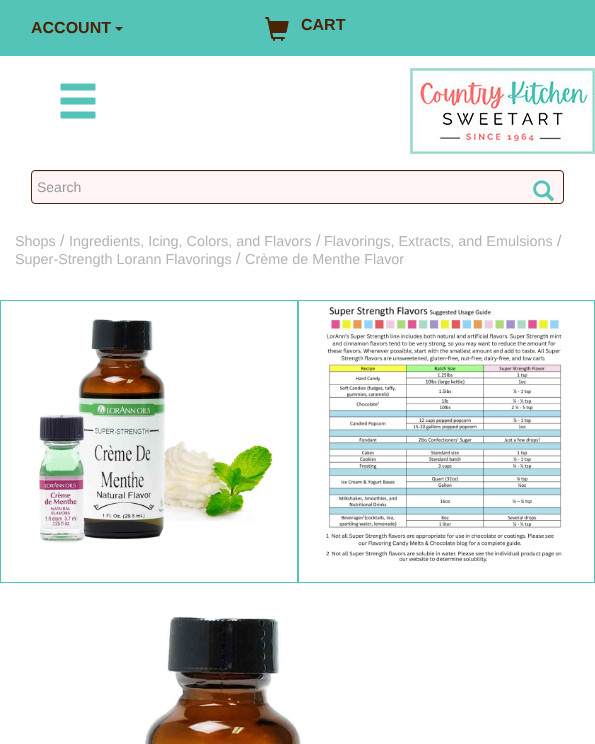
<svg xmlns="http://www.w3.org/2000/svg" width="595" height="744">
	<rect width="100%" height="100%" fill="#FFFFFF" />
	<rect x="0" y="0" width="595" height="56" fill="#54C4B8" />
	<text x="31" y="33" font-family="Liberation Sans" font-size="16" font-weight="700" fill="#492408">ACCOUNT</text>
	<path d="M115 27H123L119 31Z" fill="#492408" />
	<image x="265" y="17" width="24" height="24" href="assets/img1.png" />
	<text x="301" y="30" font-family="Liberation Sans" font-size="16" font-weight="700" fill="#492408">CART</text>
	<image x="60" y="83" width="36" height="36" href="assets/img2.png" />
	<image x="410" y="68" width="185" height="86" href="assets/img3.png" />
	<rect x="31" y="170" width="533" height="34" rx="4" fill="#FFF5F7" />
	<path d="M35 172H560C562 172 563 173 563 175L562 172L560 171H35C33 171 32 173 32 175C32 173 33 172 35 172Z" fill="#ECE3E4" />
	<rect x="31.5" y="170.5" width="532" height="33" rx="3.5" fill="none" stroke="#492408" />
	<text x="37" y="192" font-family="Liberation Sans" font-size="14" fill="#999999">Search</text>
	<image x="533" y="180" width="21" height="22" href="assets/img4.png" />
	<text x="15" y="246" font-family="Liberation Sans" font-size="14.4" fill="#B4B4B4">Shops</text>
	<text x="60" y="246" font-family="Liberation Sans" font-size="16" fill="#B4B4B4">/</text>
	<text x="69" y="246" font-family="Liberation Sans" font-size="14.4" fill="#B4B4B4">Ingredients, Icing, Colors, and Flavors</text>
	<text x="316" y="246" font-family="Liberation Sans" font-size="16" fill="#B4B4B4">/</text>
	<text x="324" y="246" font-family="Liberation Sans" font-size="14.4" fill="#B4B4B4">Flavorings, Extracts, and Emulsions</text>
	<text x="557" y="246" font-family="Liberation Sans" font-size="16" fill="#B4B4B4">/</text>
	<text x="15" y="264" font-family="Liberation Sans" font-size="14.4" fill="#B4B4B4">Super-Strength Lorann Flavorings</text>
	<text x="236" y="264" font-family="Liberation Sans" font-size="16" fill="#B4B4B4">/</text>
	<text x="245" y="264" font-family="Liberation Sans" font-size="14.4" fill="#B4B4B4">Crème de Menthe Flavor</text>
	<rect x="0.5" y="300.5" width="297" height="282" fill="none" stroke="#54C4B8" />
	<image x="39" y="319" width="235" height="224" href="assets/img5.png" />
	<rect x="298.5" y="300.5" width="296" height="282" fill="none" stroke="#54C4B8" />
	<image x="326" y="306" width="236" height="257" href="assets/img6.png" />
	<image x="144" y="616" width="158" height="128" href="assets/img7.png" />
</svg>
